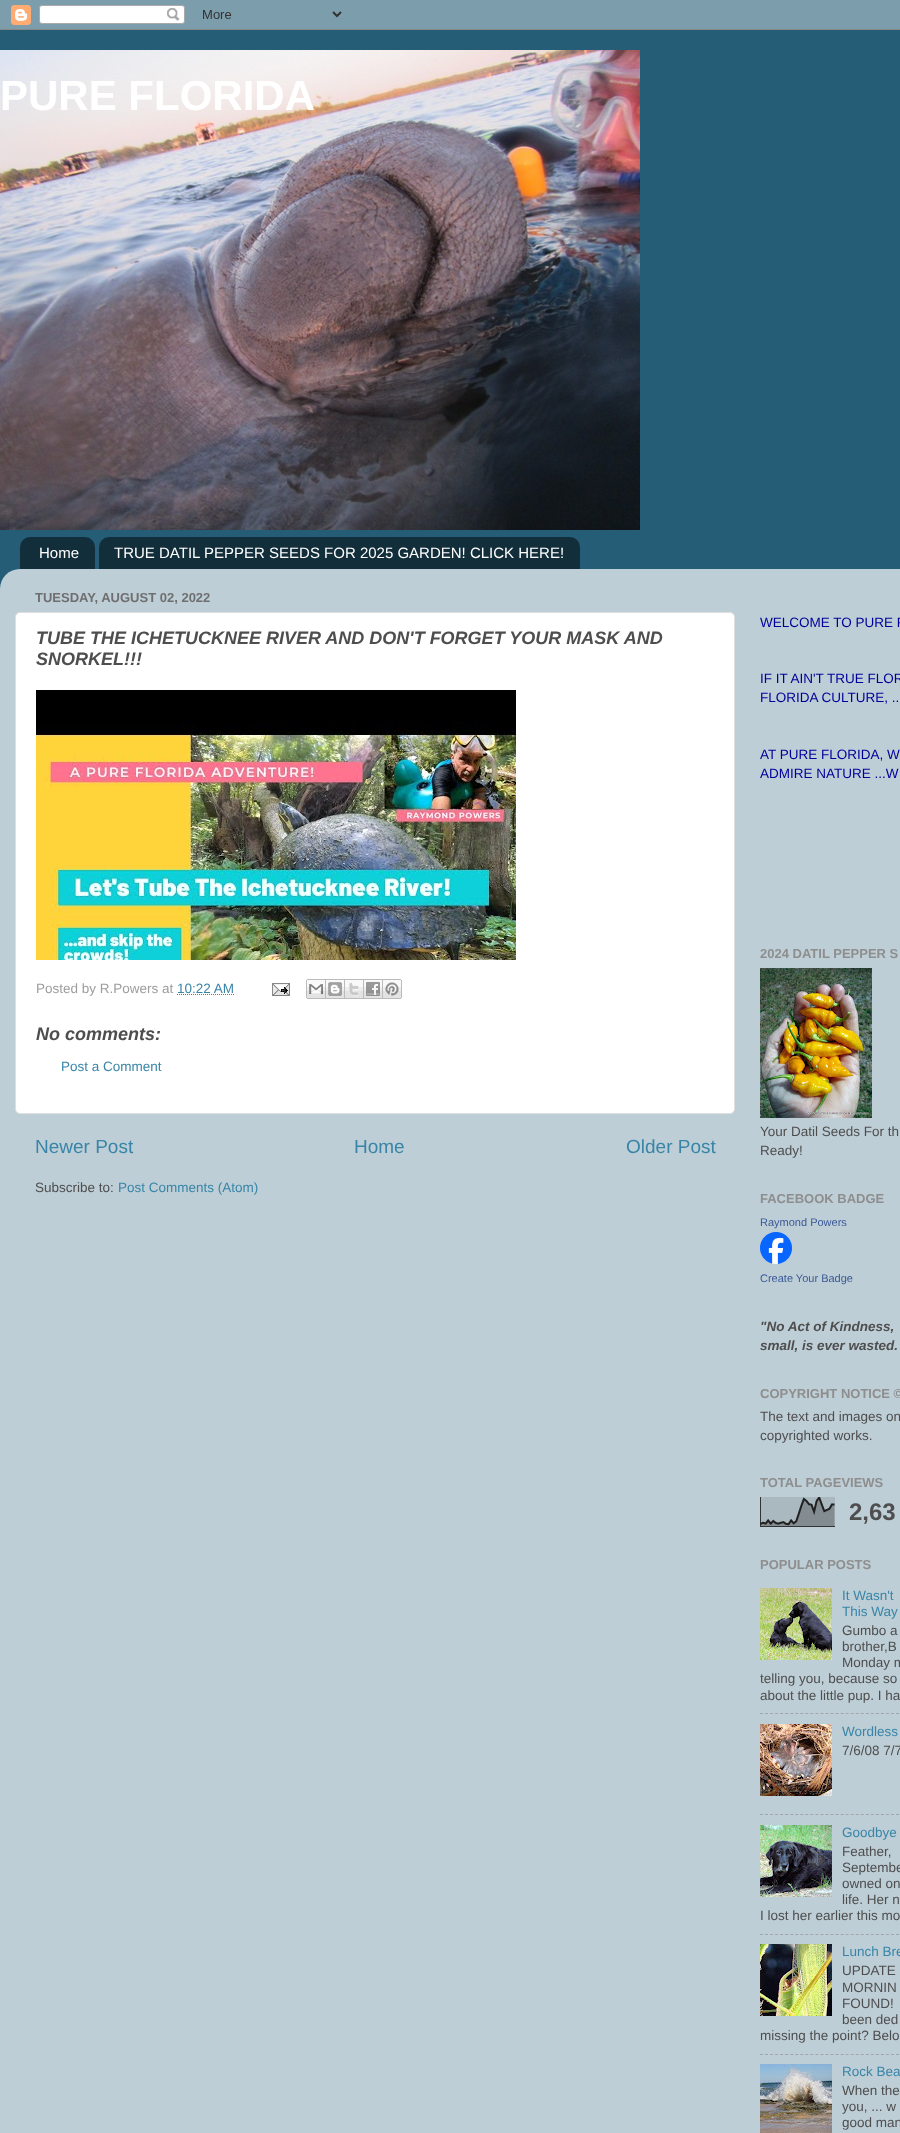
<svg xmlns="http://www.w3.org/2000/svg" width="900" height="2133">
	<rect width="100%" height="100%" fill="#255D76" />
	<image x="0" y="0" width="900" height="30" href="assets/img1.png" />
	<image x="0" y="50" width="640" height="480" href="assets/img2.png" />
	<text x="0" y="110" font-family="Liberation Sans" font-size="42" font-weight="700" fill="#FFFFFF">PURE FLORIDA</text>
	<image x="20" y="537" width="75" height="32" href="assets/img3.png" />
	<text x="39" y="558" font-family="Liberation Sans" font-size="15" fill="#FFFFFF">Home</text>
	<image x="99" y="537" width="481" height="32" href="assets/img4.png" />
	<text x="114" y="558" font-family="Liberation Sans" font-size="15" fill="#FFFFFF">TRUE DATIL PEPPER SEEDS FOR 2025 GARDEN! CLICK HERE!</text>
	<image x="0" y="569" width="900" height="1564" href="assets/img5.png" />
	<text x="35" y="602" font-family="Liberation Sans" font-size="13" font-weight="700" fill="#6F6F6F">TUESDAY, AUGUST 02, 2022</text>
	<rect x="15.5" y="612.5" width="719" height="501" rx="4.5" fill="#FFFFFF" stroke="#DFDFDF" />
	<g font-family="Liberation Sans" font-size="18" font-weight="700" font-style="italic" fill="#4E4E4E">
		<text x="36" y="644">TUBE THE ICHETUCKNEE RIVER AND DON'T FORGET YOUR MASK AND</text>
		<text x="36" y="665">SNORKEL!!!</text>
	</g>
	<image x="36" y="690" width="480" height="270" href="assets/img6.png" />
	<text x="36" y="993" font-family="Liberation Sans" font-size="13.5" fill="#9D9D9D">Posted by R.Powers at</text>
	<text x="177" y="993" font-family="Liberation Sans" font-size="13.5" fill="#3885A8">10:22 AM</text>
	<path d="M177 994.5H234" fill="none" stroke="#3885A8" stroke-dasharray="1 1" />
	<image x="272" y="983" width="18" height="13" href="assets/img7.png" />
	<image x="306" y="979" width="20" height="20" href="assets/img8.png" />
	<image x="326" y="979" width="19" height="20" href="assets/img9.png" />
	<image x="345" y="979" width="19" height="20" href="assets/img10.png" />
	<image x="364" y="979" width="19" height="20" href="assets/img11.png" />
	<image x="383" y="979" width="19" height="20" href="assets/img12.png" />
	<text x="36" y="1040" font-family="Liberation Sans" font-size="18" font-weight="700" font-style="italic" fill="#4E4E4E">No comments:</text>
	<text x="61" y="1071" font-family="Liberation Sans" font-size="13.5" fill="#3885A8">Post a Comment</text>
	<g font-family="Liberation Sans" font-size="19" fill="#3885A8">
		<text x="35" y="1153">Newer Post</text>
		<text x="354" y="1153">Home</text>
		<text x="626" y="1153">Older Post</text>
	</g>
	<text x="35" y="1192" font-family="Liberation Sans" font-size="13.5" fill="#4E4E4E">Subscribe to:</text>
	<text x="118" y="1192" font-family="Liberation Sans" font-size="13.5" fill="#3885A8">Post Comments (Atom)</text>
	<g font-family="Liberation Sans" font-size="13.5" fill="#000099">
		<text x="760" y="627">WELCOME TO PURE F</text>
		<text x="760" y="683">IF IT AIN'T TRUE FLOR</text>
		<text x="760" y="702">FLORIDA CULTURE, ..</text>
		<text x="760" y="759">AT PURE FLORIDA, W</text>
		<text x="760" y="778">ADMIRE NATURE ...W</text>
	</g>
	<text x="760" y="958" font-family="Liberation Sans" font-size="13" font-weight="700" fill="#8E8E8E">2024 DATIL PEPPER S</text>
	<image x="760" y="968" width="112" height="150" href="assets/img13.png" />
	<g font-family="Liberation Sans" font-size="13.5" fill="#4E4E4E">
		<text x="760" y="1136">Your Datil Seeds For th</text>
		<text x="760" y="1155">Ready!</text>
	</g>
	<text x="760" y="1203" font-family="Liberation Sans" font-size="13" font-weight="700" fill="#8E8E8E">FACEBOOK BADGE</text>
	<text x="760" y="1226" font-family="Liberation Sans" font-size="11" fill="#3B5998">Raymond Powers</text>
	<image x="760" y="1232" width="32" height="32" href="assets/img14.png" />
	<text x="760" y="1282" font-family="Liberation Sans" font-size="11" fill="#3B5998">Create Your Badge</text>
	<g font-family="Liberation Sans" font-size="13.5" font-weight="700" font-style="italic" fill="#4E4E4E">
		<text x="760" y="1331">"No Act of Kindness,</text>
		<text x="760" y="1350">small, is ever wasted.</text>
	</g>
	<text x="760" y="1398" font-family="Liberation Sans" font-size="13" font-weight="700" fill="#8E8E8E">COPYRIGHT NOTICE ©</text>
	<g font-family="Liberation Sans" font-size="13.5" fill="#4E4E4E">
		<text x="760" y="1421">The text and images on</text>
		<text x="760" y="1440">copyrighted works.</text>
	</g>
	<text x="760" y="1487" font-family="Liberation Sans" font-size="13" font-weight="700" fill="#8E8E8E">TOTAL PAGEVIEWS</text>
	<image x="760" y="1497" width="75" height="30" href="assets/img15.png" />
	<text x="849" y="1520" font-family="Liberation Sans" font-size="24" font-weight="700" fill="#4E4E4E">2,63</text>
	<text x="760" y="1569" font-family="Liberation Sans" font-size="13" font-weight="700" fill="#8E8E8E">POPULAR POSTS</text>
	<image x="760" y="1588" width="72" height="72" href="assets/img16.png" />
	<g font-family="Liberation Sans" font-size="13.5" fill="#3885A8">
		<text x="842" y="1600">It Wasn't</text>
		<text x="842" y="1616">This Way</text>
	</g>
	<g font-family="Liberation Sans" font-size="13.5" fill="#4E4E4E">
		<text x="842" y="1635">Gumbo a</text>
		<text x="842" y="1651">brother,B</text>
		<text x="842" y="1667">Monday m</text>
		<text x="760" y="1683">telling you, because so</text>
		<text x="760" y="1700">about the little pup. I ha</text>
	</g>
	<path d="M760 1713.5H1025" fill="none" stroke="#9FA7AB" stroke-dasharray="3 2.04" />
	<image x="760" y="1724" width="72" height="72" href="assets/img17.png" />
	<text x="842" y="1736" font-family="Liberation Sans" font-size="13.5" fill="#3885A8">Wordless</text>
	<text x="842" y="1755" font-family="Liberation Sans" font-size="13.5" fill="#4E4E4E">7/6/08 7/7</text>
	<path d="M760 1814.5H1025" fill="none" stroke="#9FA7AB" stroke-dasharray="3 2.04" />
	<image x="760" y="1825" width="72" height="72" href="assets/img18.png" />
	<text x="842" y="1837" font-family="Liberation Sans" font-size="13.5" fill="#3885A8">Goodbye</text>
	<g font-family="Liberation Sans" font-size="13.5" fill="#4E4E4E">
		<text x="842" y="1856">Feather,</text>
		<text x="842" y="1872">Septembe</text>
		<text x="842" y="1888">owned on</text>
		<text x="842" y="1904">life. Her n</text>
		<text x="760" y="1920">I lost her earlier this mo</text>
	</g>
	<path d="M760 1934.5H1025" fill="none" stroke="#9FA7AB" stroke-dasharray="3 2.04" />
	<image x="760" y="1944" width="72" height="72" href="assets/img19.png" />
	<text x="842" y="1956" font-family="Liberation Sans" font-size="13.5" fill="#3885A8">Lunch Bre</text>
	<g font-family="Liberation Sans" font-size="13.5" fill="#4E4E4E">
		<text x="842" y="1975">UPDATE</text>
		<text x="842" y="1992">MORNIN</text>
		<text x="842" y="2008">FOUND!</text>
		<text x="842" y="2024">been ded</text>
		<text x="760" y="2040">missing the point? Belo</text>
	</g>
	<path d="M760 2054.5H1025" fill="none" stroke="#9FA7AB" stroke-dasharray="3 2.04" />
	<image x="760" y="2064" width="72" height="69" href="assets/img20.png" />
	<text x="842" y="2076" font-family="Liberation Sans" font-size="13.5" fill="#3885A8">Rock Bea</text>
	<g font-family="Liberation Sans" font-size="13.5" fill="#4E4E4E">
		<text x="842" y="2095">When the</text>
		<text x="842" y="2111">you, ... w</text>
		<text x="842" y="2127">good man</text>
	</g>
</svg>
